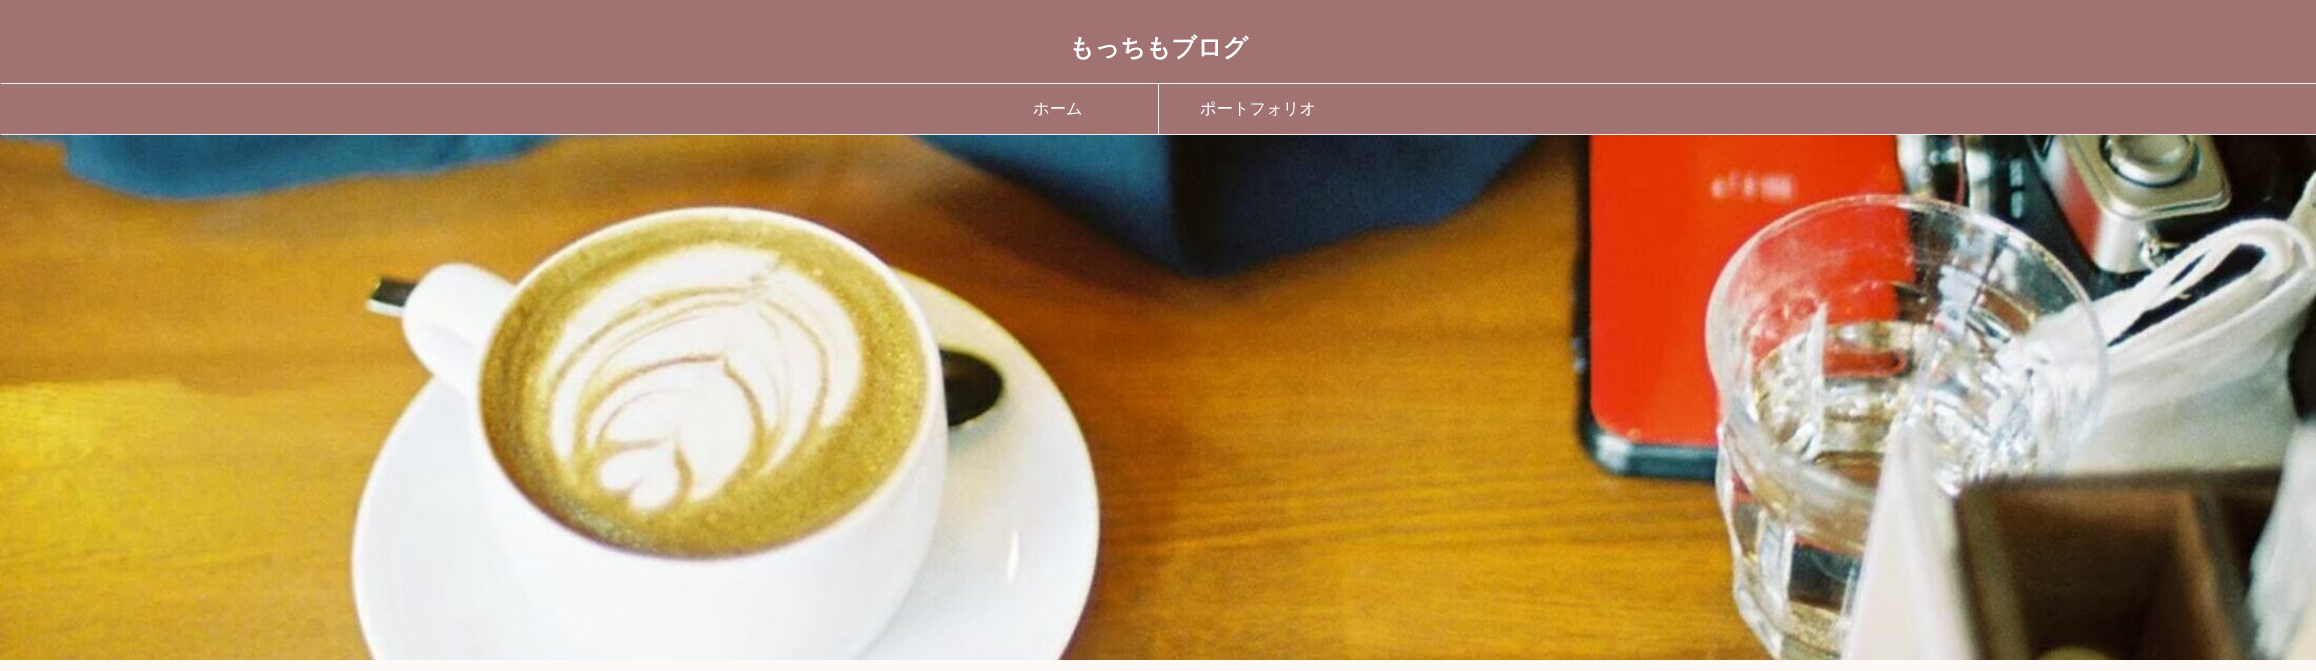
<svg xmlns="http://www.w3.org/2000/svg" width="2316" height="671">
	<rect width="100%" height="100%" fill="#FFF9F5" />
	<rect x="0" y="0" width="2316" height="83" fill="#A17272" />
	<text x="1069" y="56" font-family="WenQuanYi Zen Hei" font-size="25" font-weight="700" fill="#FFFFFF">もっちもブログ</text>
	<rect x="0" y="83" width="2316" height="52" rx="1" fill="#A17272" />
	<rect x="1" y="83" width="2315" height="1" fill="#F0F0F0" />
	<rect x="1" y="134" width="2315" height="1" fill="#F0F0F0" />
	<rect x="1158" y="84" width="1" height="50" fill="#F0F0F0" />
	<g font-family="WenQuanYi Zen Hei" font-size="16.25" font-weight="500" fill="#FFFFFF">
		<text x="1033" y="114">ホーム</text>
		<text x="1200" y="114">ポートフォリオ</text>
	</g>
	<image x="0" y="135" width="2316" height="525" href="assets/img1.png" />
</svg>
